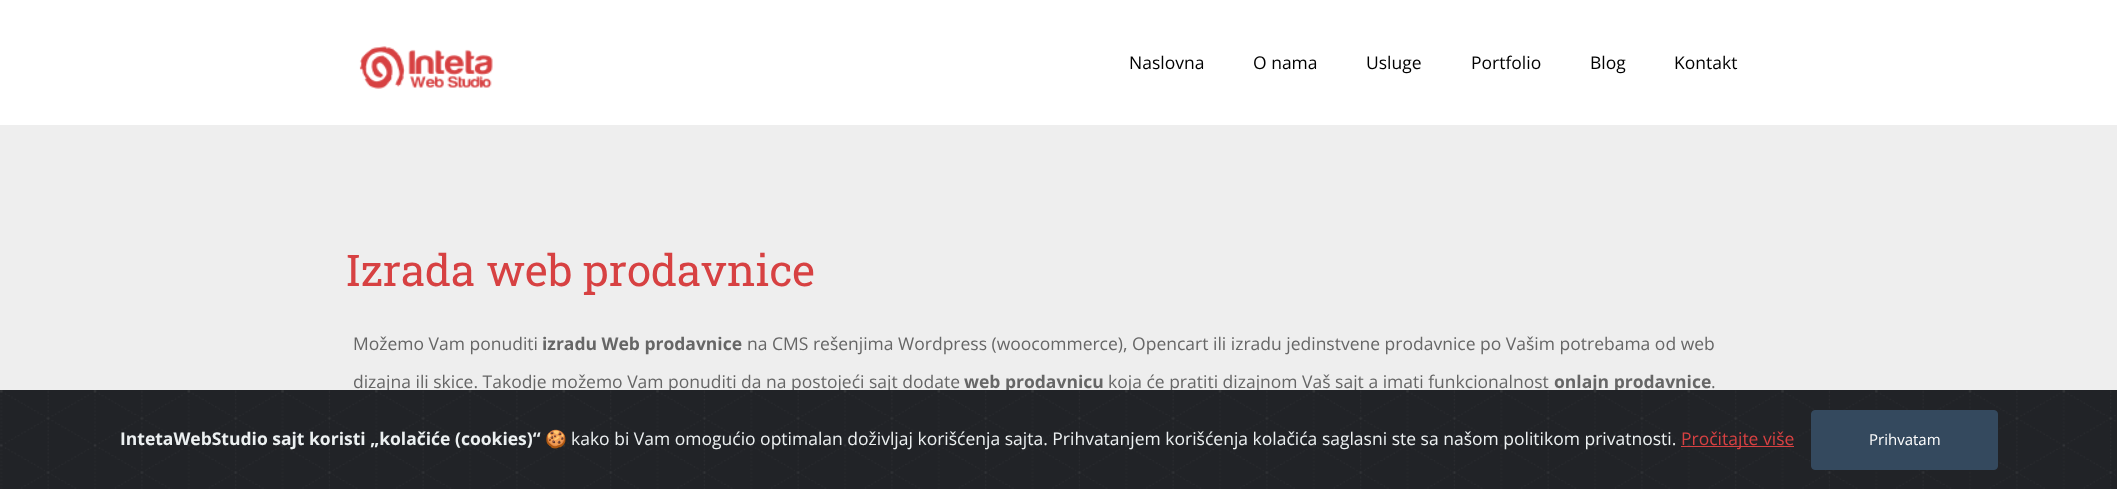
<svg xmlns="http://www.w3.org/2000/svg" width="2117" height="489">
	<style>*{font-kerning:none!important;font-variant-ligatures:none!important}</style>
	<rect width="100%" height="100%" fill="#EEEEEE" />
	<rect x="0" y="0" width="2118" height="125" fill="#BBBBBB" filter="blur(0.5px)" />
	<rect x="0" y="0" width="2117" height="125" fill="#FFFFFF" />
	<image x="359" y="46" width="134" height="43" href="assets/img1.png" />
	<g font-family="Open Sans" font-size="17.5" fill="#000000">
		<text x="1129" y="69">Naslovna</text>
		<text x="1253" y="69">O nama</text>
		<text x="1366" y="69">Usluge</text>
		<text x="1471" y="69">Portfolio</text>
		<text x="1590" y="69">Blog</text>
		<text x="1674" y="69">Kontakt</text>
	</g>
	<text x="346" y="286" font-family="Roboto Slab" font-size="43.75" fill="#D74142">Izrada web prodavnice</text>
	<text x="353" y="350" font-family="Open Sans" font-size="17.5" fill="#666666">Možemo Vam ponuditi</text>
	<text x="542" y="350" font-family="Open Sans" font-size="17.5" font-weight="700" fill="#666666">izradu Web prodavnice</text>
	<g font-family="Open Sans" font-size="17.5" fill="#666666">
		<text x="747" y="350">na CMS rešenjima Wordpress (woocommerce), Opencart ili izradu jedinstvene prodavnice po Vašim potrebama od web</text>
		<text x="353" y="388">dizajna ili skice. Takodje možemo Vam ponuditi da na postojeći sajt dodate</text>
	</g>
	<text x="964" y="388" font-family="Open Sans" font-size="17.5" font-weight="700" fill="#666666">web prodavnicu</text>
	<text x="1108" y="388" font-family="Open Sans" font-size="17.5" fill="#666666">koja će pratiti dizajnom Vaš sajt a imati funkcionalnost</text>
	<text x="1554" y="388" font-family="Open Sans" font-size="17.5" font-weight="700" fill="#666666">onlajn prodavnice</text>
	<text x="1711" y="388" font-family="Open Sans" font-size="17.5" fill="#666666">.</text>
	<rect x="2116" y="390" width="1" height="99" fill="#212327" />
	<image x="0" y="390" width="2116" height="99" href="assets/img2.png" />
	<text x="120" y="445" font-family="Open Sans" font-size="17.5" font-weight="700" fill="#ECF0F1">IntetaWebStudio sajt koristi „kolačiće (cookies)“</text>
	<text x="545" y="445" font-family="Noto Color Emoji" font-size="17.5" fill="#ECF0F1">🍪</text>
	<text x="571" y="445" font-family="Open Sans" font-size="17.5" fill="#ECF0F1">kako bi Vam omogućio optimalan doživljaj korišćenja sajta. Prihvatanjem korišćenja kolačića saglasni ste sa našom politikom privatnosti.</text>
	<rect x="1681" y="446" width="113" height="1" fill="#D74142" />
	<text x="1681" y="445" font-family="Open Sans" font-size="17.5" fill="#D74142">Pročitajte više</text>
	<rect x="1811.5" y="410.5" width="186" height="59" rx="3.5" fill="#34495E" stroke="#34495E" />
	<text x="1869" y="445" font-family="Open Sans" font-size="15" fill="#FFFFFF">Prihvatam</text>
</svg>
